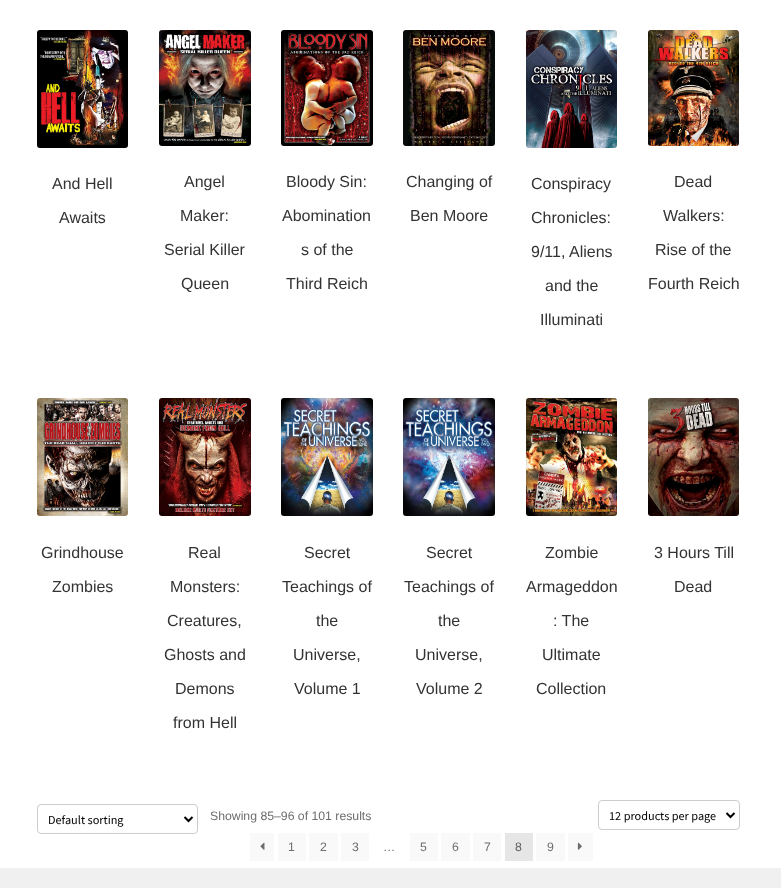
<svg xmlns="http://www.w3.org/2000/svg" width="781" height="888">
	<rect width="100%" height="100%" fill="#FFFFFF" />
	<image x="37" y="30" width="91" height="118" href="assets/img1.png" />
	<g font-family="Liberation Sans" font-size="16" fill="#333333">
		<text x="52" y="189">And Hell</text>
		<text x="59" y="223">Awaits</text>
	</g>
	<image x="159" y="30" width="92" height="116" href="assets/img2.png" />
	<g font-family="Liberation Sans" font-size="16" fill="#333333">
		<text x="184" y="187">Angel</text>
		<text x="180" y="221">Maker:</text>
		<text x="164" y="255">Serial Killer</text>
		<text x="181" y="289">Queen</text>
	</g>
	<image x="281" y="30" width="92" height="116" href="assets/img3.png" />
	<g font-family="Liberation Sans" font-size="16" fill="#333333">
		<text x="286" y="187">Bloody Sin:</text>
		<text x="282" y="221">Abomination</text>
		<text x="301" y="255">s of the</text>
		<text x="286" y="289">Third Reich</text>
	</g>
	<image x="403" y="30" width="92" height="116" href="assets/img4.png" />
	<g font-family="Liberation Sans" font-size="16" fill="#333333">
		<text x="406" y="187">Changing of</text>
		<text x="410" y="221">Ben Moore</text>
	</g>
	<image x="526" y="30" width="91" height="118" href="assets/img5.png" />
	<g font-family="Liberation Sans" font-size="16" fill="#333333">
		<text x="531" y="189">Conspiracy</text>
		<text x="531" y="223">Chronicles:</text>
		<text x="531" y="257">9/11, Aliens</text>
		<text x="545" y="291">and the</text>
		<text x="540" y="325">Illuminati</text>
	</g>
	<image x="648" y="30" width="91" height="116" href="assets/img6.png" />
	<g font-family="Liberation Sans" font-size="16" fill="#333333">
		<text x="674" y="187">Dead</text>
		<text x="663" y="221">Walkers:</text>
		<text x="655" y="255">Rise of the</text>
		<text x="648" y="289">Fourth Reich</text>
	</g>
	<image x="37" y="398" width="91" height="118" href="assets/img7.png" />
	<g font-family="Liberation Sans" font-size="16" fill="#333333">
		<text x="41" y="558">Grindhouse</text>
		<text x="52" y="592">Zombies</text>
	</g>
	<image x="159" y="398" width="92" height="118" href="assets/img8.png" />
	<g font-family="Liberation Sans" font-size="16" fill="#333333">
		<text x="188" y="558">Real</text>
		<text x="170" y="592">Monsters:</text>
		<text x="167" y="626">Creatures,</text>
		<text x="164" y="660">Ghosts and</text>
		<text x="175" y="694">Demons</text>
		<text x="173" y="728">from Hell</text>
	</g>
	<image x="281" y="398" width="92" height="118" href="assets/img9.png" />
	<g font-family="Liberation Sans" font-size="16" fill="#333333">
		<text x="304" y="558">Secret</text>
		<text x="282" y="592">Teachings of</text>
		<text x="316" y="626">the</text>
		<text x="293" y="660">Universe,</text>
		<text x="294" y="694">Volume 1</text>
	</g>
	<image x="403" y="398" width="92" height="118" href="assets/img10.png" />
	<g font-family="Liberation Sans" font-size="16" fill="#333333">
		<text x="426" y="558">Secret</text>
		<text x="404" y="592">Teachings of</text>
		<text x="438" y="626">the</text>
		<text x="415" y="660">Universe,</text>
		<text x="416" y="694">Volume 2</text>
	</g>
	<image x="526" y="398" width="91" height="118" href="assets/img11.png" />
	<g font-family="Liberation Sans" font-size="16" fill="#333333">
		<text x="545" y="558">Zombie</text>
		<text x="526" y="592">Armageddon</text>
		<text x="553" y="626">: The</text>
		<text x="542" y="660">Ultimate</text>
		<text x="536" y="694">Collection</text>
	</g>
	<image x="648" y="398" width="91" height="118" href="assets/img12.png" />
	<g font-family="Liberation Sans" font-size="16" fill="#333333">
		<text x="654" y="558">3 Hours Till</text>
		<text x="674" y="592">Dead</text>
	</g>
	<rect x="37.5" y="804.5" width="160" height="29" rx="3.5" fill="none" stroke="#CCCCCC" />
	<path d="M184.5 817L188.5 821L192.5 817" fill="none" stroke="#000000" stroke-width="2" />
	<text x="48" y="824" font-family="Source Sans Pro" font-size="12.25" fill="#000000">Default sorting</text>
	<text x="210" y="820" font-family="Liberation Sans" font-size="12.25" fill="#6D6D6D">Showing 85–96 of 101 results</text>
	<rect x="598.5" y="800.5" width="141" height="29" rx="3.5" fill="none" stroke="#CCCCCC" />
	<path d="M726.5 813L730.5 817L734.5 813" fill="none" stroke="#000000" stroke-width="2" />
	<text x="609" y="820" font-family="Source Sans Pro" font-size="12.25" fill="#000000">12 products per page</text>
	<rect x="250" y="833" width="24" height="28" fill="#F9F9F9" />
	<image x="260" y="842" width="5" height="8" href="assets/img13.png" />
	<rect x="278" y="833" width="28" height="28" fill="#F9F9F9" />
	<text x="288" y="851" font-family="Liberation Sans" font-size="12.25" fill="#6D6D6D">1</text>
	<rect x="309" y="833" width="29" height="28" fill="#F9F9F9" />
	<text x="320" y="851" font-family="Liberation Sans" font-size="12.25" fill="#6D6D6D">2</text>
	<rect x="341" y="833" width="28" height="28" fill="#F9F9F9" />
	<g font-family="Liberation Sans" font-size="12.25" fill="#6D6D6D">
		<text x="352" y="851">3</text>
		<text x="383" y="851">…</text>
	</g>
	<rect x="410" y="833" width="28" height="28" fill="#F9F9F9" />
	<text x="420" y="851" font-family="Liberation Sans" font-size="12.25" fill="#6D6D6D">5</text>
	<rect x="441" y="833" width="29" height="28" fill="#F9F9F9" />
	<text x="452" y="851" font-family="Liberation Sans" font-size="12.25" fill="#6D6D6D">6</text>
	<rect x="473" y="833" width="28" height="28" fill="#F9F9F9" />
	<text x="484" y="851" font-family="Liberation Sans" font-size="12.25" fill="#6D6D6D">7</text>
	<rect x="505" y="833" width="28" height="28" fill="#E6E6E6" />
	<text x="515" y="851" font-family="Liberation Sans" font-size="12.25" fill="#636363">8</text>
	<rect x="536" y="833" width="29" height="28" fill="#F9F9F9" />
	<text x="547" y="851" font-family="Liberation Sans" font-size="12.25" fill="#6D6D6D">9</text>
	<rect x="568" y="833" width="25" height="28" fill="#F9F9F9" />
	<image x="577" y="842" width="5" height="8" href="assets/img14.png" />
	<rect x="0" y="868" width="781" height="20" fill="#F0F0F0" />
</svg>
